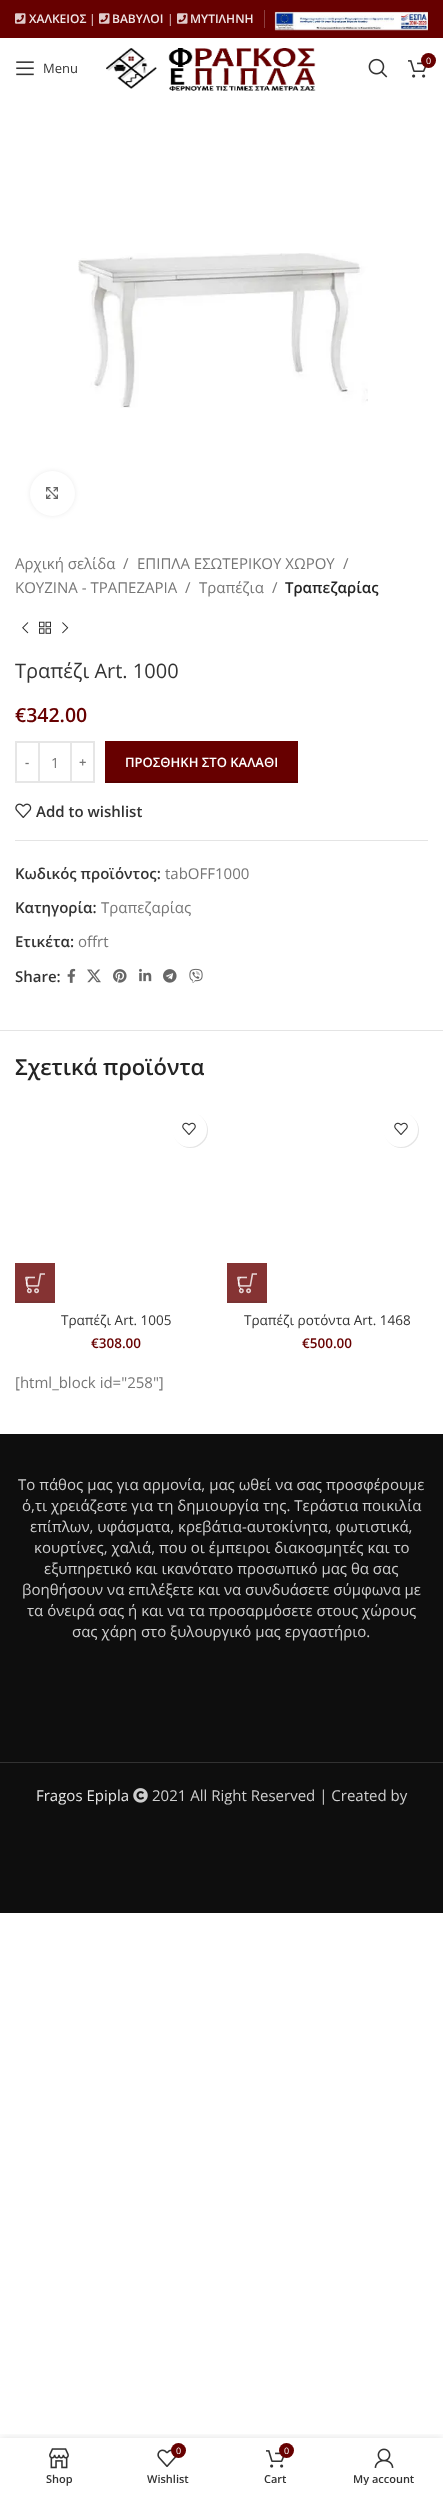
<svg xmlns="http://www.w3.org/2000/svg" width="443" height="2493">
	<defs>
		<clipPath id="clip1"><rect x="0" y="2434" width="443" height="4" /></clipPath>
		<clipPath id="clip2"><rect x="340" y="2472" width="88" height="13" /></clipPath>
	</defs>
	<rect width="100%" height="100%" fill="#FFFFFF" />
	<rect x="0" y="0" width="443" height="38" fill="#670000" />
	<image x="15" y="13" width="11" height="11" href="assets/img1.png" />
	<text x="29" y="23" font-family="Open Sans" font-size="12" font-weight="600" fill="#F0E6E6">ΧΑΛΚΕΙΟΣ</text>
	<text x="89" y="23" font-family="Open Sans" font-size="12" fill="#F0E6E6">|</text>
	<image x="99" y="13" width="11" height="11" href="assets/img1.png" />
	<text x="112" y="23" font-family="Open Sans" font-size="12" font-weight="600" fill="#F0E6E6">ΒΑΒΥΛΟΙ</text>
	<text x="167" y="23" font-family="Open Sans" font-size="12" fill="#E1CCCC">|</text>
	<image x="177" y="13" width="11" height="11" href="assets/img1.png" />
	<text x="190" y="23" font-family="Open Sans" font-size="12" font-weight="600" fill="#F0E6E6">ΜΥΤΙΛΗΝΗ</text>
	<rect x="264" y="10" width="1" height="18" fill="#8D4040" />
	<image x="274" y="11" width="154" height="20" href="assets/img2.png" />
	<image x="106" y="48" width="210" height="43" href="assets/img3.png" />
	<image x="368" y="58" width="20" height="20" href="assets/img4.png" />
	<image x="408" y="60" width="19" height="18" href="assets/img5.png" />
	<circle cx="428.5" cy="60.5" r="7.5" fill="#670000" />
	<text x="426" y="64" font-family="Open Sans" font-size="9" fill="#FFFFFF">0</text>
	<image x="16" y="61" width="18" height="15" href="assets/img6.png" />
	<text x="43" y="73" font-family="Open Sans" font-size="13" fill="#333333">Menu</text>
	<image x="78" y="253" width="290" height="155" href="assets/img7.png" />
	<rect x="30" y="471" width="45" height="45" rx="22.5" fill="#000000" fill-opacity="0.08" filter="blur(2.5px)" />
	<circle cx="52.5" cy="493.5" r="22.5" fill="#FFFFFF" />
	<image x="46" y="487" width="12" height="12" href="assets/img8.png" />
	<g font-family="Open Sans" font-size="15" fill="#767676">
		<text x="15" y="569">Αρχική σελίδα</text>
		<text x="123" y="569">/</text>
		<text x="137" y="569">ΕΠΙΠΛΑ ΕΣΩΤΕΡΙΚΟΥ ΧΩΡΟΥ</text>
		<text x="343" y="569">/</text>
		<text x="15" y="593">ΚΟΥΖΙΝΑ - ΤΡΑΠΕΖΑΡΙΑ</text>
		<text x="185" y="593">/</text>
		<text x="199" y="593">Tραπέζια</text>
		<text x="272" y="593">/</text>
	</g>
	<text x="285" y="593" font-family="Open Sans" font-size="15" font-weight="600" fill="#242424">Τραπεζαρίας</text>
	<image x="22" y="622" width="7" height="12" href="assets/img9.png" />
	<image x="39" y="621" width="12" height="13" href="assets/img10.png" />
	<image x="62" y="622" width="7" height="12" href="assets/img11.png" />
	<text x="15" y="678" font-family="Open Sans" font-size="20" fill="#333333">Τραπέζι Art. 1000</text>
	<text x="15" y="722" font-family="Open Sans" font-size="19.5" font-weight="600" fill="#670000">€342.00</text>
	<rect x="16" y="742" width="23" height="40" fill="none" stroke="#E6E6E6" stroke-width="2" />
	<text x="25" y="767" font-family="Open Sans" font-size="13" font-weight="600" fill="#767676">-</text>
	<rect x="40" y="741" width="30" height="2" fill="#E6E6E6" />
	<rect x="40" y="781" width="30" height="2" fill="#E6E6E6" />
	<text x="51" y="768" font-family="Open Sans" font-size="14" fill="#767676">1</text>
	<rect x="71" y="742" width="23" height="40" fill="none" stroke="#E6E6E6" stroke-width="2" />
	<text x="79" y="767" font-family="Open Sans" font-size="13" font-weight="600" fill="#767676">+</text>
	<rect x="105" y="741" width="193" height="40" fill="#670000" />
	<rect x="105" y="781" width="193" height="2" fill="#580000" />
	<text x="125" y="767" font-family="Open Sans" font-size="13" font-weight="600" fill="#FFFFFF">ΠΡΟΣΘΗΚΗ ΣΤΟ ΚΑΛΑΘΙ</text>
	<image x="15" y="803" width="17" height="15" href="assets/img12.png" />
	<text x="36" y="817" font-family="Open Sans" font-size="15" font-weight="600" fill="#333333">Add to wishlist</text>
	<rect x="15" y="840" width="413" height="1" fill="#E4E4E4" />
	<text x="15" y="879" font-family="Open Sans" font-size="15" font-weight="600" fill="#333333">Κωδικός προϊόντος:</text>
	<text x="165" y="879" font-family="Open Sans" font-size="15" fill="#767676">tabOFF1000</text>
	<text x="15" y="913" font-family="Open Sans" font-size="15" font-weight="600" fill="#333333">Κατηγορία:</text>
	<text x="101" y="913" font-family="Open Sans" font-size="15" fill="#767676">Τραπεζαρίας</text>
	<text x="15" y="947" font-family="Open Sans" font-size="15" font-weight="600" fill="#333333">Ετικέτα:</text>
	<text x="78" y="947" font-family="Open Sans" font-size="15" fill="#767676">offrt</text>
	<text x="15" y="982" font-family="Open Sans" font-size="15" font-weight="600" fill="#333333">Share:</text>
	<image x="67" y="968" width="9" height="15" href="assets/img13.png" />
	<image x="87" y="969" width="14" height="14" href="assets/img14.png" />
	<image x="113" y="969" width="14" height="14" href="assets/img15.png" />
	<image x="139" y="968" width="13" height="14" href="assets/img16.png" />
	<image x="163" y="969" width="14" height="14" href="assets/img17.png" />
	<image x="189" y="968" width="14" height="15" href="assets/img18.png" />
	<rect x="0" y="1030" width="443" height="1" fill="#E4E4E4" />
	<text x="15" y="1075" font-family="Open Sans" font-size="22" font-weight="600" fill="#242424">Σχετικά προϊόντα</text>
	<rect x="173" y="1113" width="35" height="35" rx="17.5" fill="#000000" fill-opacity="0.1" filter="blur(0.5px)" />
	<circle cx="189.5" cy="1129.5" r="17.5" fill="#FFFFFF" />
	<image x="182" y="1122" width="14" height="13" href="assets/img19.png" />
	<rect x="15" y="1263" width="40" height="38" fill="#853333" />
	<rect x="15" y="1301" width="40" height="2" fill="#793333" />
	<image x="25" y="1273" width="20" height="21" href="assets/img20.png" />
	<path d="M29 1289C25.5 1285.5 25.5 1280.5 29 1277" fill="none" stroke="#FFFFFF" />
	<text x="61" y="1325" font-family="Open Sans" font-size="13.5" fill="#333333">Τραπέζι Art. 1005</text>
	<text x="91" y="1348" font-family="Open Sans" font-size="13.5" font-weight="600" fill="#670000">€308.00</text>
	<rect x="384" y="1113" width="35" height="35" rx="17.5" fill="#000000" fill-opacity="0.1" filter="blur(0.5px)" />
	<circle cx="400.5" cy="1129.5" r="17.5" fill="#FFFFFF" />
	<image x="394" y="1122" width="14" height="13" href="assets/img19.png" />
	<rect x="227" y="1263" width="40" height="38" fill="#853333" />
	<rect x="227" y="1301" width="40" height="2" fill="#793333" />
	<image x="237" y="1273" width="20" height="21" href="assets/img20.png" />
	<path d="M241 1289C237.5 1285.5 237.5 1280.5 241 1277" fill="none" stroke="#FFFFFF" />
	<text x="244" y="1325" font-family="Open Sans" font-size="13.5" fill="#333333">Τραπέζι ροτόντα Art. 1468</text>
	<text x="302" y="1348" font-family="Open Sans" font-size="13.5" font-weight="600" fill="#670000">€500.00</text>
	<text x="15" y="1388" font-family="Open Sans" font-size="15" fill="#767676">[html_block id="258"]</text>
	<rect x="0" y="1434" width="443" height="479" fill="#0E0E0E" />
	<g font-family="Open Sans" font-size="15" fill="#CFCFCF">
		<text x="18" y="1490">Το πάθος μας για αρμονία, μας ωθεί να σας προσφέρουμε</text>
		<text x="22" y="1511">ό,τι χρειάζεστε για τη δημιουργία της. Tεράστια ποικιλία</text>
		<text x="30" y="1532">επίπλων, υφάσματα, κρεβάτια-αυτοκίνητα, φωτιστικά,</text>
		<text x="34" y="1553">κουρτίνες, χαλιά, που οι έμπειροι διακοσμητές και το</text>
		<text x="44" y="1574">εξυπηρετικό και ικανότατο προσωπικό μας θα σας</text>
		<text x="22" y="1595">βοηθήσουν να επιλέξετε και να συνδυάσετε σύμφωνα με</text>
		<text x="27" y="1616">τα όνειρά σας ή και να τα προσαρμόσετε στους χώρους</text>
		<text x="72" y="1637">σας χάρη στο ξυλουργικό μας εργαστήριο.</text>
	</g>
	<rect x="0" y="1762" width="443" height="1" fill="#323232" />
	<text x="36" y="1801" font-family="Open Sans" font-size="15" fill="#E7E7E7">Fragos Epipla</text>
	<image x="133" y="1788" width="15" height="15" href="assets/img21.png" />
	<text x="152" y="1801" font-family="Open Sans" font-size="15" fill="#CFCFCF">2021 All Right Reserved | Created by</text>
	<g clip-path="url(#clip1)">
		<rect x="0" y="2438" width="443" height="55" fill="#000000" fill-opacity="0.12" filter="blur(4.5px)" />
	</g>
	<image x="49" y="2448" width="20" height="21" href="assets/img22.png" />
	<text x="46" y="2483" font-family="Open Sans" font-size="11" font-weight="600" fill="#333333">Shop</text>
	<image x="157" y="2449" width="20" height="18" href="assets/img23.png" />
	<circle cx="178.5" cy="2450.5" r="7.5" fill="#670000" />
	<text x="176" y="2454" font-family="Open Sans" font-size="9" fill="#FFFFFF">0</text>
	<text x="147" y="2483" font-family="Open Sans" font-size="11" font-weight="600" fill="#333333">Wishlist</text>
	<image x="266" y="2450" width="19" height="18" href="assets/img5.png" />
	<circle cx="286.5" cy="2450.5" r="7.5" fill="#670000" />
	<text x="284" y="2454" font-family="Open Sans" font-size="9" fill="#FFFFFF">0</text>
	<text x="264" y="2483" font-family="Open Sans" font-size="11" font-weight="600" fill="#333333">Cart</text>
	<image x="374" y="2448" width="20" height="20" href="assets/img24.png" />
	<g clip-path="url(#clip2)">
		<text x="353" y="2483" font-family="Open Sans" font-size="11" font-weight="600" fill="#333333">My account</text>
	</g>
</svg>
